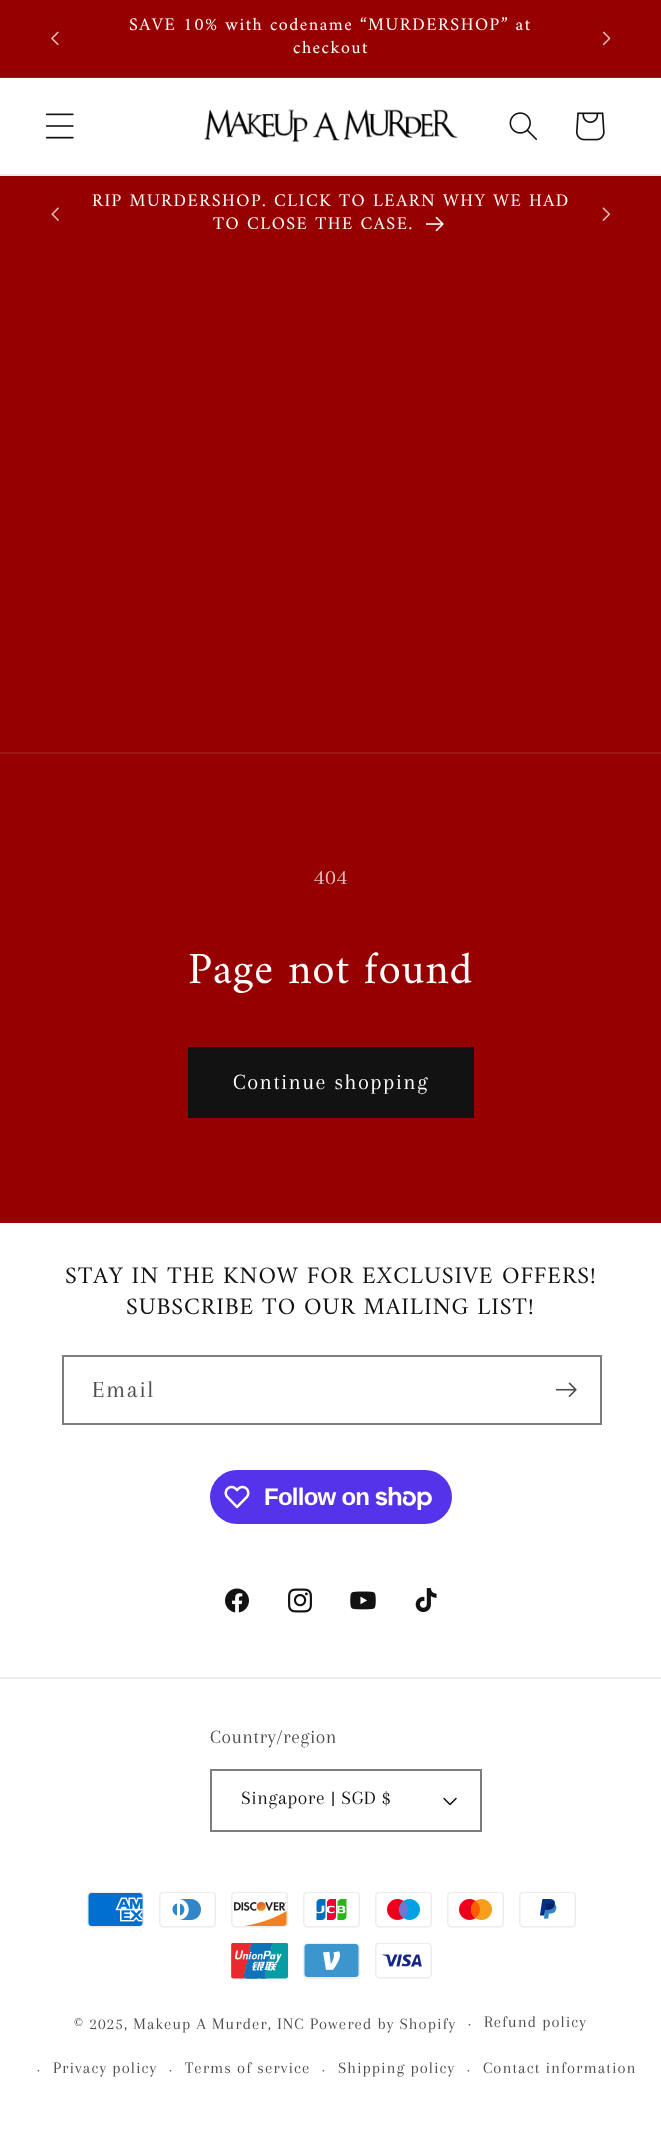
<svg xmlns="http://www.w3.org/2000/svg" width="661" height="2133">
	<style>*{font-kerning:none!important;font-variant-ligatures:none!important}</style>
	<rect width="100%" height="100%" fill="#970000" />
	<rect x="0" y="77" width="661" height="1" fill="#9F1414" />
	<image x="51" y="31" width="8" height="15" href="assets/img1.png" />
	<g font-family="Amiri" font-size="18" letter-spacing="1.5" fill="#FFFFFF">
		<text x="129" y="30">SAVE 10% with codename “MURDERSHOP” at</text>
		<text x="293" y="53">checkout</text>
	</g>
	<image x="602" y="31" width="9" height="15" href="assets/img2.png" />
	<rect x="0" y="78" width="661" height="96" fill="#FFFFFF" />
	<rect x="0" y="174" width="661" height="2" fill="#ECECEC" />
	<image x="45" y="113" width="29" height="26" href="assets/img3.png" />
	<image x="204" y="109" width="254" height="33" href="assets/img4.png" />
	<image x="509" y="112" width="28" height="28" href="assets/img5.png" />
	<image x="576" y="112" width="29" height="29" href="assets/img6.png" />
	<rect x="0" y="752" width="661" height="2" fill="#9F1414" />
	<image x="51" y="207" width="8" height="14" href="assets/img7.png" />
	<g font-family="Amiri" font-size="18" letter-spacing="1.5" fill="#FFFFFF">
		<text x="92" y="206">RIP MURDERSHOP. CLICK TO LEARN WHY WE HAD</text>
		<text x="213" y="229">TO CLOSE THE CASE.</text>
	</g>
	<image x="426" y="216" width="18" height="16" href="assets/img8.png" />
	<image x="602" y="207" width="8" height="14" href="assets/img9.png" />
	<text x="314" y="884" font-family="Arapey" font-size="22.5" letter-spacing="0.9" fill="#E5BFBF">404</text>
	<text x="188" y="983" font-family="Amiri" font-size="45" letter-spacing="0.9" fill="#FFFFFF">Page not found</text>
	<rect x="188" y="1047" width="286" height="71" fill="#121212" />
	<text x="233" y="1089" font-family="Arapey" font-size="22.5" letter-spacing="1.5" fill="#FFFFFF">Continue shopping</text>
	<rect x="0" y="1223" width="661" height="910" fill="#FFFFFF" />
	<g font-family="Amiri" font-size="24" letter-spacing="0.9" fill="#121212">
		<text x="65" y="1283">STAY IN THE KNOW FOR EXCLUSIVE</text>
		<text x="502" y="1283">OFFERS!</text>
		<text x="126" y="1314">SUBSCRIBE TO OUR MAILING LIST!</text>
	</g>
	<rect x="63" y="1356" width="538" height="68" fill="none" stroke="#7D7D7D" stroke-width="2" />
	<text x="92" y="1397" font-family="Arapey" font-size="24" letter-spacing="1.5" fill="#4D4D4D">Email</text>
	<image x="555" y="1382" width="22" height="15" href="assets/img10.png" />
	<rect x="210" y="1470" width="242" height="54" rx="27" fill="#5433EB" />
	<image x="224" y="1485" width="26" height="24" href="assets/img11.png" />
	<text x="264" y="1505" font-family="Liberation Sans" font-size="24" font-weight="700" letter-spacing="-0.75" fill="#FFFFFF">Follow on</text>
	<image x="375" y="1487" width="57" height="23" href="assets/img12.png" />
	<image x="225" y="1588" width="24" height="25" href="assets/img13.png" />
	<image x="288" y="1588" width="24" height="25" href="assets/img14.png" />
	<image x="350" y="1591" width="26" height="19" href="assets/img15.png" />
	<image x="415" y="1588" width="22" height="25" href="assets/img16.png" />
	<rect x="0" y="1677" width="661" height="2" fill="#ECECEC" />
	<text x="210" y="1743" font-family="Arapey" font-size="19.5" letter-spacing="0.6" fill="#4D4D4D">Country/region</text>
	<image x="443" y="1797" width="14" height="9" href="assets/img17.png" />
	<rect x="211" y="1770" width="270" height="61" fill="none" stroke="#7D7D7D" stroke-width="2" />
	<text x="241" y="1804" font-family="Arapey" font-size="19.5" letter-spacing="0.6" fill="#121212">Singapore | SGD $</text>
	<image x="87" y="1892" width="57" height="36" href="assets/img18.png" />
	<image x="159" y="1892" width="57" height="36" href="assets/img19.png" />
	<image x="231" y="1892" width="57" height="36" href="assets/img20.png" />
	<image x="303" y="1892" width="57" height="36" href="assets/img21.png" />
	<image x="375" y="1892" width="57" height="36" href="assets/img22.png" />
	<image x="447" y="1892" width="57" height="36" href="assets/img23.png" />
	<image x="519" y="1892" width="57" height="36" href="assets/img24.png" />
	<image x="231" y="1943" width="57" height="36" href="assets/img25.png" />
	<image x="303" y="1943" width="57" height="36" href="assets/img26.png" />
	<image x="375" y="1943" width="57" height="36" href="assets/img27.png" />
	<text x="468" y="2029" font-family="Arapey" font-size="15" letter-spacing="1.05" fill="#4D4D4D">·</text>
	<text x="484" y="2027" font-family="Arapey" font-size="16.5" letter-spacing="1.05" fill="#4D4D4D">Refund policy</text>
	<text x="37" y="2075" font-family="Arapey" font-size="15" letter-spacing="1.05" fill="#4D4D4D">·</text>
	<text x="53" y="2073" font-family="Arapey" font-size="16.5" letter-spacing="1.05" fill="#4D4D4D">Privacy policy</text>
	<text x="169" y="2075" font-family="Arapey" font-size="15" letter-spacing="1.05" fill="#4D4D4D">·</text>
	<text x="185" y="2073" font-family="Arapey" font-size="16.5" letter-spacing="1.05" fill="#4D4D4D">Terms of service</text>
	<text x="322" y="2075" font-family="Arapey" font-size="15" letter-spacing="1.05" fill="#4D4D4D">·</text>
	<text x="338" y="2073" font-family="Arapey" font-size="16.5" letter-spacing="1.05" fill="#4D4D4D">Shipping policy</text>
	<text x="467" y="2075" font-family="Arapey" font-size="15" letter-spacing="1.05" fill="#4D4D4D">·</text>
	<g font-family="Arapey" font-size="16.5" letter-spacing="1.05" fill="#4D4D4D">
		<text x="483" y="2073">Contact information</text>
		<text x="74" y="2029">© 2025, Makeup A Murder, INC</text>
		<text x="310" y="2029">Powered by Shopify</text>
	</g>
</svg>
